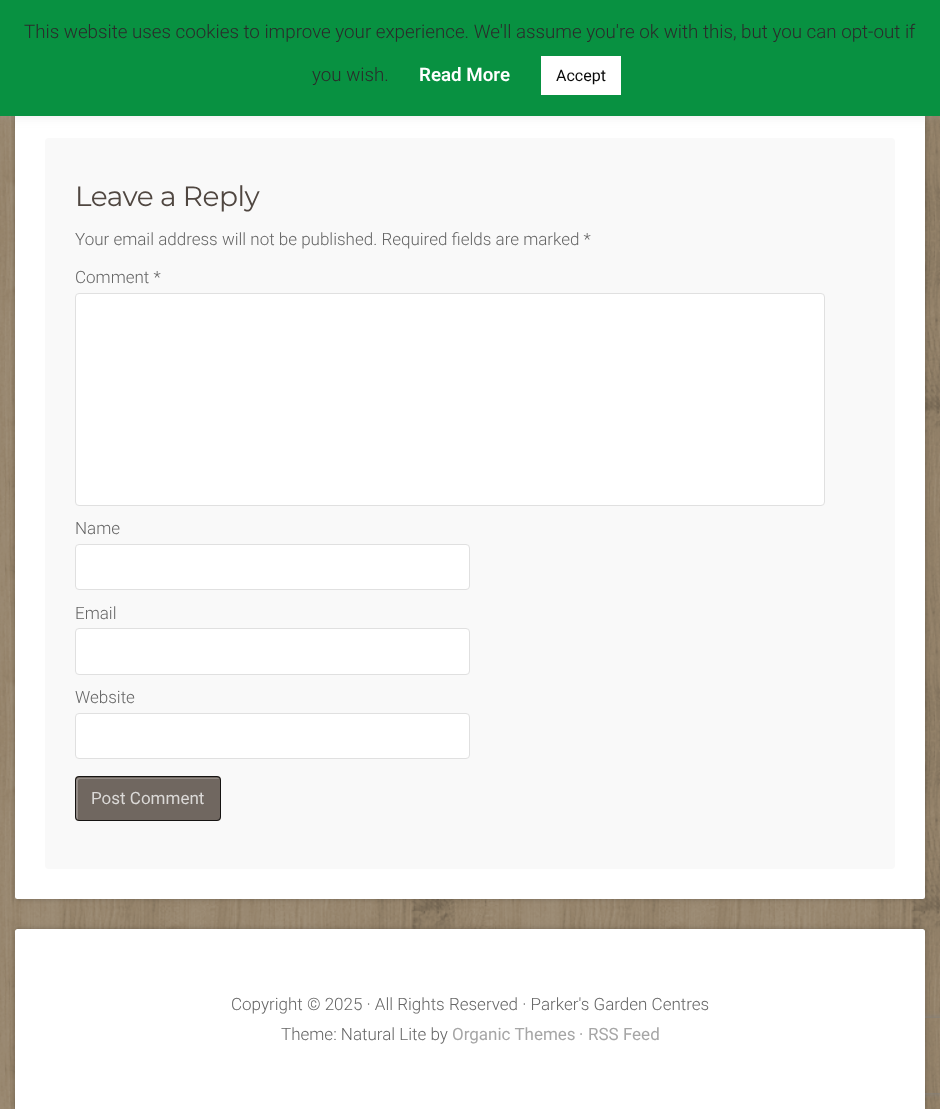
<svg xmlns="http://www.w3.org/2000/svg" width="940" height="1109">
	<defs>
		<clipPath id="clip1"><path d="M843 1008H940V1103H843ZM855.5 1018H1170.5C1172 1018 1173 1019 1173 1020.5V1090.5C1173 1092 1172 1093 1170.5 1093H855.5C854 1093 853 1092 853 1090.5V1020.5C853 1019 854 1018 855.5 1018Z" clip-rule="evenodd" /></clipPath>
	</defs>
	<rect width="100%" height="100%" fill="#FFFFFF" />
	<image x="0" y="116" width="940" height="993" href="assets/img1.png" />
	<rect x="15" y="-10" width="910" height="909" rx="2.5" fill="#000000" fill-opacity="0.24" filter="blur(2.5px)" />
	<rect x="15" y="-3" width="910" height="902" rx="2.5" fill="#FFFFFF" />
	<rect x="0" y="-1" width="940" height="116" fill="#ACABAB" fill-opacity="0.3" filter="blur(6px)" />
	<rect x="0" y="0" width="940" height="116" fill="#089141" />
	<g font-family="Roboto" font-size="18.75" font-weight="300" fill="#2B2B2B">
		<text x="24" y="38">This website uses cookies to improve your experience. We'll assume you're ok with this, but you can opt-out if</text>
		<text x="312" y="81">you wish.</text>
	</g>
	<text x="419" y="81" font-family="Roboto" font-size="18.75" font-weight="600" fill="#FFFFFF">Read More</text>
	<rect x="541" y="56" width="80" height="39" fill="#FFFFFF" />
	<text x="556" y="81" font-family="Roboto" font-size="16" fill="#0A0A0A">Accept</text>
	<rect x="45" y="138" width="850" height="731" rx="4" fill="#F9F9F9" />
	<text x="75" y="206" font-family="Montserrat" font-size="28" letter-spacing="-0.5" fill="#504741">Leave a Reply</text>
	<g font-family="Roboto" font-size="17" font-weight="300" fill="#666666">
		<text x="75" y="245">Your email address will not be published. Required fields are marked *</text>
		<text x="75" y="283">Comment *</text>
	</g>
	<rect x="75.5" y="293.5" width="749" height="212" rx="3.5" fill="#FFFFFF" stroke="#E0E0E0" />
	<text x="75" y="534" font-family="Roboto" font-size="17" font-weight="300" fill="#666666">Name</text>
	<rect x="75.5" y="544.5" width="394" height="45" rx="3.5" fill="#FFFFFF" stroke="#E0E0E0" />
	<text x="75" y="619" font-family="Roboto" font-size="17" font-weight="300" fill="#666666">Email</text>
	<rect x="75.5" y="628.5" width="394" height="46" rx="3.5" fill="#FFFFFF" stroke="#E0E0E0" />
	<text x="75" y="703" font-family="Roboto" font-size="17" font-weight="300" fill="#666666">Website</text>
	<rect x="75.5" y="713.5" width="394" height="45" rx="3.5" fill="#FFFFFF" stroke="#E0E0E0" />
	<rect x="75" y="776" width="146" height="45" rx="4" fill="#706760" />
	<path d="M80 779H220C219 778 218 778 218 778H78C77 778 76 779 76 780V818C76 819 77 820 78 820V781C78 780 79 779 80 779Z" fill="#928B86" />
	<rect x="75.5" y="776.5" width="145" height="44" rx="3.5" fill="none" stroke="#000000" stroke-opacity="0.8" />
	<text x="91" y="804" font-family="Roboto" font-size="17" fill="#DBD9D7">Post Comment</text>
	<rect x="15" y="929" width="910" height="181" rx="2.5" fill="#000000" fill-opacity="0.24" filter="blur(2.5px)" />
	<g clip-path="url(#clip1)">
		<rect x="853" y="1018" width="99" height="75" rx="2.5" fill="#808080" filter="blur(3px)" />
	</g>
	<path d="M17.5 929H922.5C924 929 925 930 925 931.5V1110H15V931.5C15 930 16 929 17.5 929Z" fill="#FFFFFF" />
	<g font-family="Roboto" font-size="17" font-weight="300" fill="#666666">
		<text x="231" y="1010">Copyright © 2025 · All Rights Reserved · Parker's Garden Centres</text>
		<text x="281" y="1040">Theme: Natural Lite by</text>
	</g>
	<text x="452" y="1040" font-family="Roboto" font-size="17" fill="#A6A6A6">Organic Themes</text>
	<text x="579" y="1040" font-family="Roboto" font-size="17" font-weight="300" fill="#666666">·</text>
	<text x="588" y="1040" font-family="Roboto" font-size="17" fill="#A6A6A6">RSS Feed</text>
</svg>
